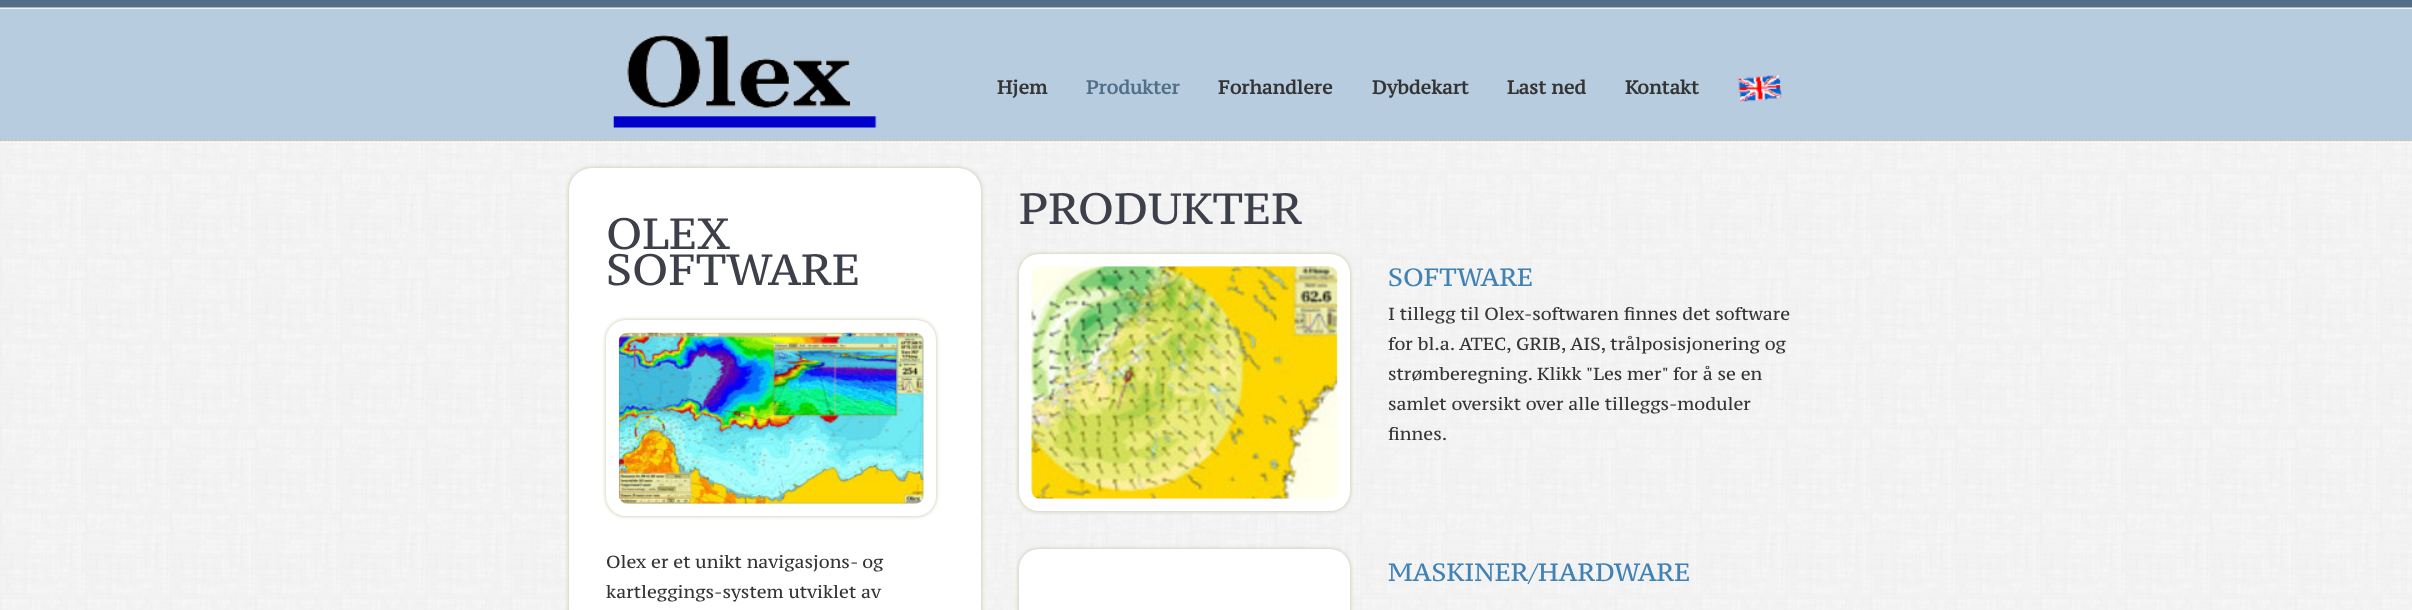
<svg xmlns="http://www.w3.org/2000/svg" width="2412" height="610">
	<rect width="100%" height="100%" fill="#FFFFFF" />
	<image x="0" y="142" width="2412" height="468" href="assets/img1.png" />
	<rect x="0" y="8" width="2412" height="132" fill="#B8CCE0" />
	<image x="0" y="0" width="2412" height="9" href="assets/img2.png" />
	<image x="613" y="35" width="264" height="93" href="assets/img3.png" />
	<text x="997" y="94" font-family="PT Serif Caption" font-size="18.75" font-weight="700" fill="#343434">Hjem</text>
	<text x="1086" y="94" font-family="PT Serif Caption" font-size="18.75" font-weight="700" fill="#517087">Produkter</text>
	<g font-family="PT Serif Caption" font-size="18.75" font-weight="700" fill="#343434">
		<text x="1218" y="94">Forhandlere</text>
		<text x="1372" y="94">Dybdekart</text>
		<text x="1507" y="94">Last ned</text>
		<text x="1625" y="94">Kontakt</text>
	</g>
	<image x="1737" y="75" width="45" height="27" href="assets/img4.png" />
	<image x="0" y="140" width="2412" height="3" href="assets/img5.png" />
	<rect x="569" y="168" width="412" height="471" rx="23" fill="#C5C2A9" filter="blur(2px)" />
	<rect x="569" y="168" width="412" height="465" rx="23" fill="#FFFFFF" />
	<g font-family="PT Serif Caption" font-size="43.75" fill="#3D3F4B">
		<text x="606" y="249">OLEX</text>
		<text x="606" y="285">SOFTWARE</text>
	</g>
	<rect x="606" y="320" width="330" height="196" rx="20" fill="#C5C2A9" filter="blur(2px)" />
	<rect x="606" y="320" width="330" height="196" rx="20" fill="#FFFFFF" />
	<image x="618" y="332" width="306" height="172" href="assets/img6.png" />
	<g font-family="PT Serif Caption" font-size="17.5" fill="#343434">
		<text x="606" y="568">Olex er et unikt navigasjons- og</text>
		<text x="606" y="598">kartleggings-system utviklet av</text>
	</g>
	<text x="1019" y="224" font-family="PT Serif Caption" font-size="43.75" fill="#3D3F4B">PRODUKTER</text>
	<rect x="1019" y="254" width="331" height="257" rx="20" fill="#C5C2A9" filter="blur(2px)" />
	<rect x="1019" y="254" width="331" height="257" rx="20" fill="#FFFFFF" />
	<image x="1031" y="266" width="307" height="233" href="assets/img7.png" />
	<text x="1388" y="286" font-family="PT Serif Caption" font-size="25" fill="#4182B5">SOFTWARE</text>
	<g font-family="PT Serif Caption" font-size="17.5" fill="#343434">
		<text x="1388" y="320">I tillegg til Olex-softwaren finnes det software</text>
		<text x="1388" y="350">for bl.a. ATEC, GRIB, AIS, trålposisjonering og</text>
		<text x="1388" y="380">strømberegning. Klikk "Les mer" for å se en</text>
		<text x="1388" y="410">samlet oversikt over alle tilleggs-moduler</text>
		<text x="1388" y="440">finnes.</text>
	</g>
	<rect x="1019" y="549" width="331" height="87" rx="20" fill="#C5C2A9" filter="blur(2px)" />
	<rect x="1019" y="549" width="331" height="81" rx="20" fill="#FFFFFF" />
	<text x="1388" y="581" font-family="PT Serif Caption" font-size="25" fill="#4182B5">MASKINER/HARDWARE</text>
</svg>
